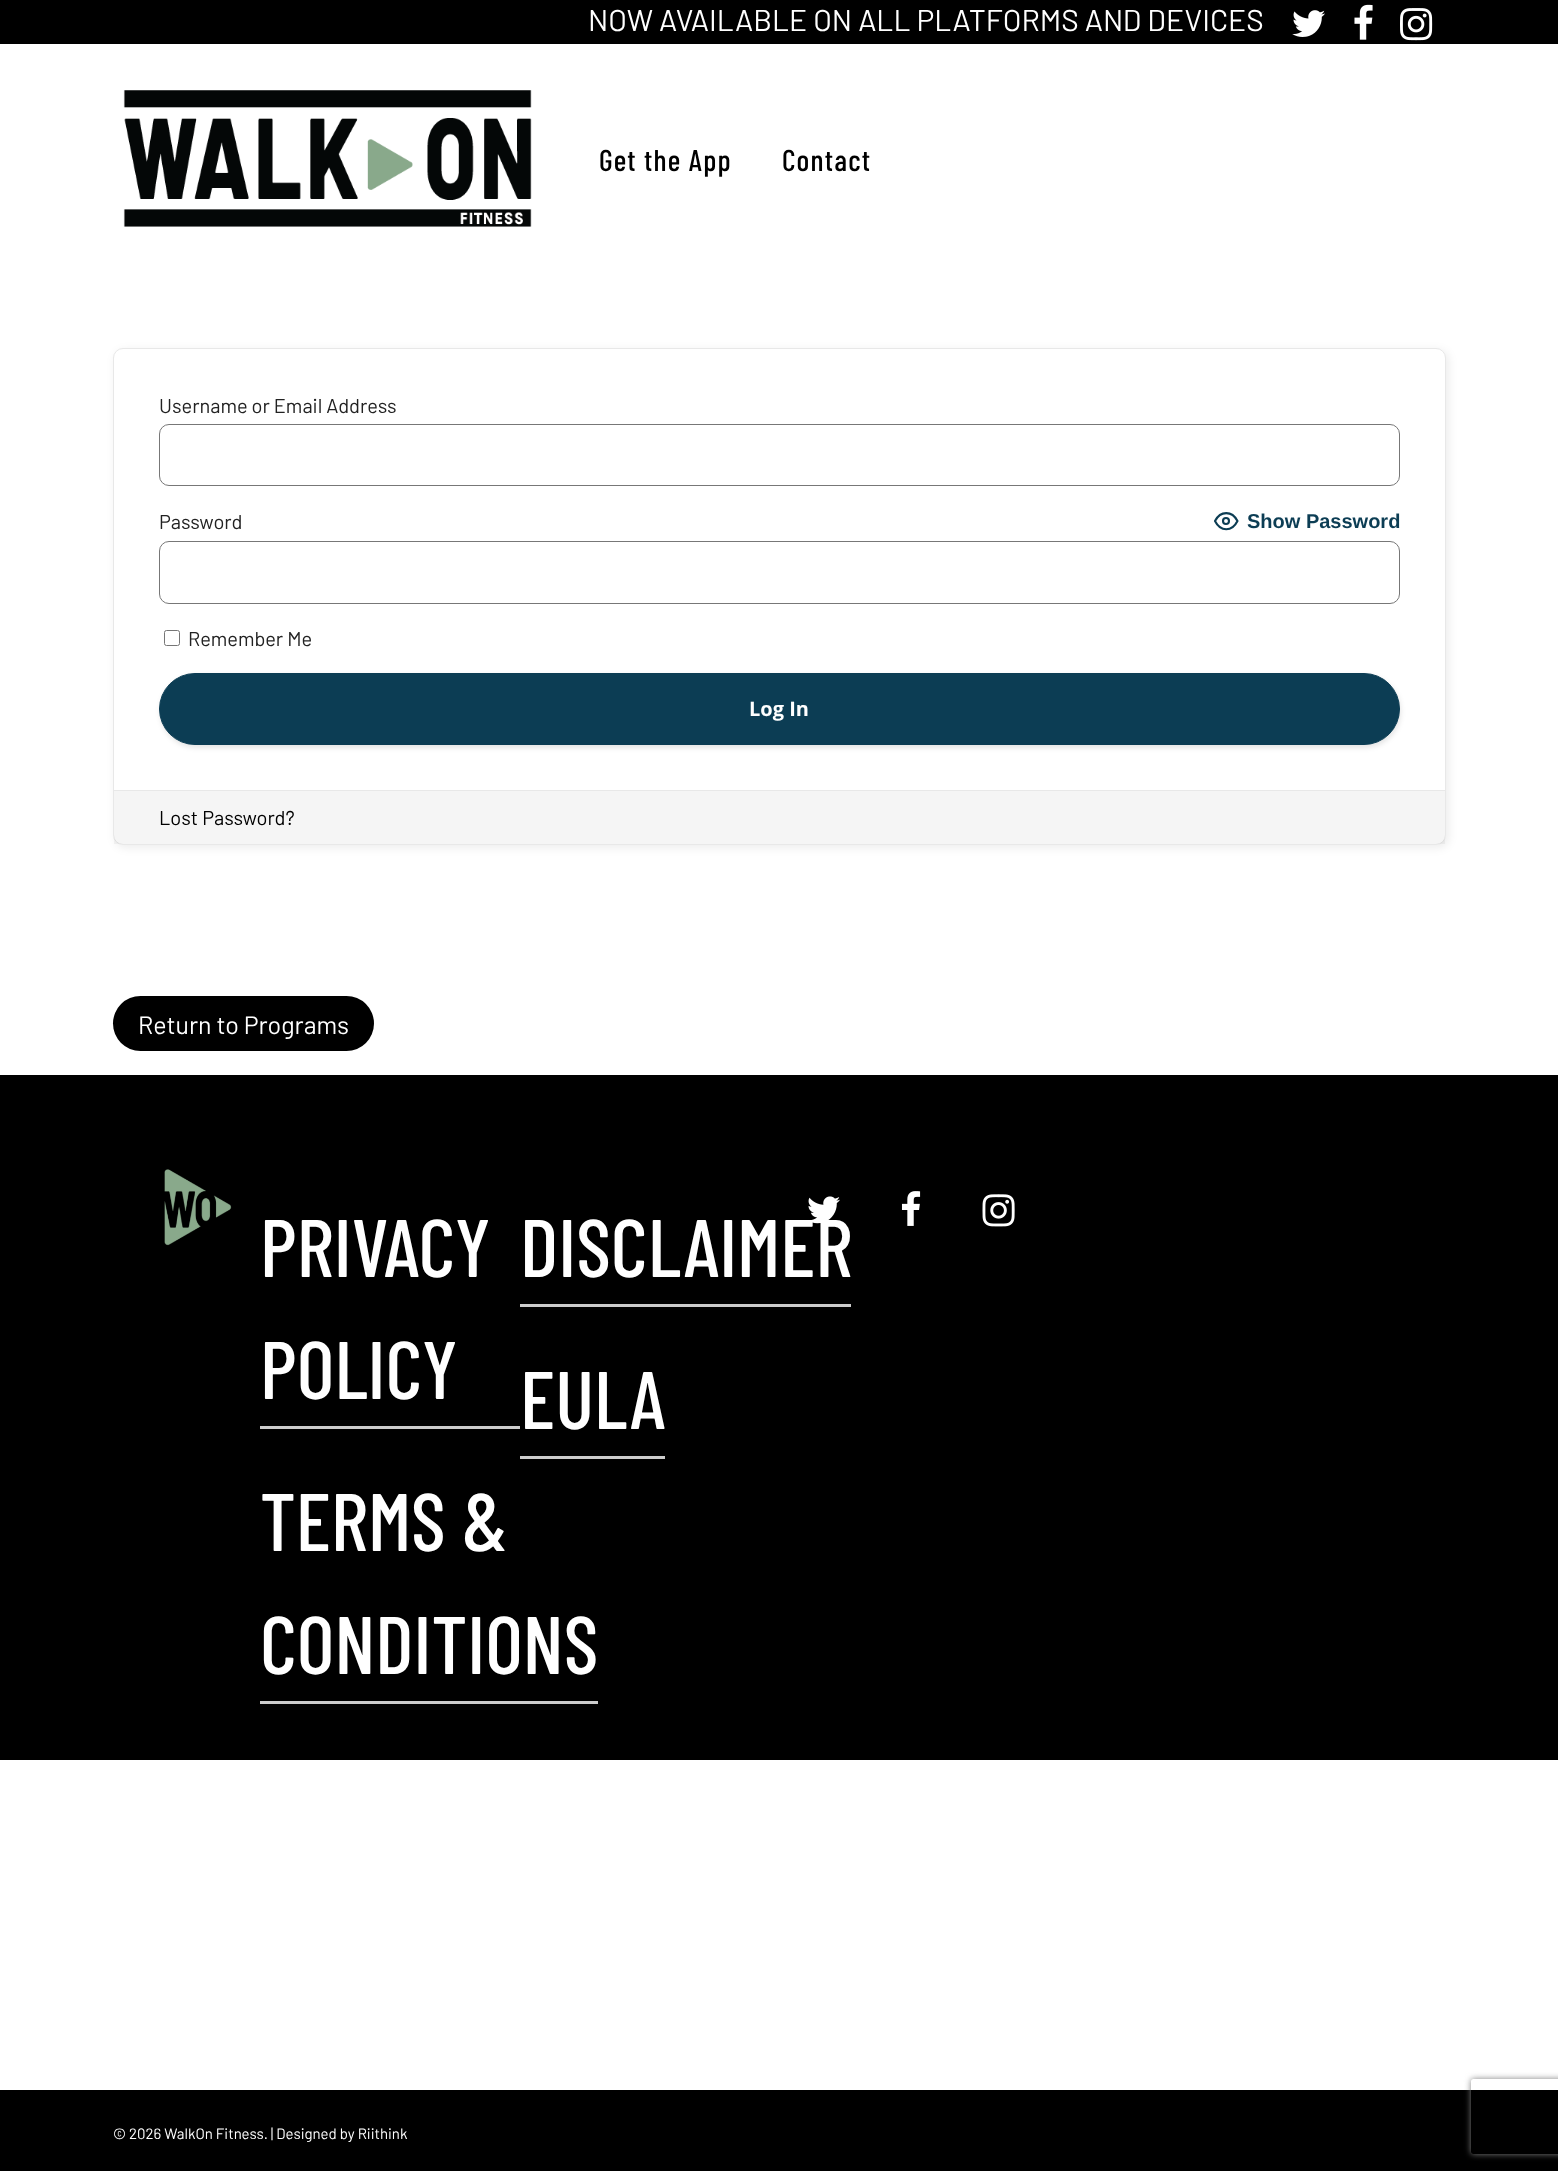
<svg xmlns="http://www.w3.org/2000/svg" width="1558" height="2171">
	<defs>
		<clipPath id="clip1"><path d="M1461 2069H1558V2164H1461ZM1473.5 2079H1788.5C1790 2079 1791 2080 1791 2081.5V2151.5C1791 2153 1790 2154 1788.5 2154H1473.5C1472 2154 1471 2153 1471 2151.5V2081.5C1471 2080 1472 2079 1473.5 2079Z" clip-rule="evenodd" /></clipPath>
	</defs>
	<rect width="100%" height="100%" fill="#FFFFFF" />
	<rect x="0" y="0" width="1558" height="44" fill="#000000" />
	<text x="588" y="31" font-family="Barlow" font-size="30" fill="#FFFFFF">NOW AVAILABLE ON ALL PLATFORMS AND DEVICES</text>
	<image x="1292" y="10" width="33" height="27" href="assets/img1.png" />
	<image x="1354" y="4" width="19" height="36" href="assets/img2.png" />
	<image x="1400" y="8" width="33" height="33" href="assets/img3.png" />
	<image x="123" y="90" width="409" height="137" href="assets/img4.png" />
	<g font-family="Barlow Condensed" font-size="30" font-weight="500" letter-spacing="1.25" fill="#000000">
		<text x="599" y="171">Get the App</text>
		<text x="782" y="171">Contact</text>
	</g>
	<rect x="115" y="350" width="1334" height="498" rx="10" fill="#000000" fill-opacity="0.07" filter="blur(4.5px)" />
	<rect x="113.5" y="348.5" width="1332" height="496" rx="9.5" fill="#FFFFFF" stroke="#E8E8E8" />
	<text x="159" y="413" font-family="Barlow" font-size="20" fill="#222222">Username or Email Address</text>
	<rect x="159.5" y="424.5" width="1240" height="61" rx="9.5" fill="none" stroke="#777777" />
	<text x="159" y="529" font-family="Barlow" font-size="20" fill="#222222">Password</text>
	<path d="M1215 521C1220.5 510.5 1232 510.5 1237.5 521C1232 532 1220.5 532 1215 521Z" fill="none" stroke="#0C3D54" stroke-width="2.1" stroke-linecap="round" stroke-linejoin="round" />
	<circle cx="1226" cy="521" r="3" fill="none" stroke="#0C3D54" stroke-width="2.1" />
	<text x="1247" y="528" font-family="Liberation Sans" font-size="20" font-weight="700" fill="#0C3D54">Show Password</text>
	<rect x="159.5" y="541.5" width="1240" height="62" rx="9.5" fill="none" stroke="#777777" />
	<rect x="164.5" y="630.5" width="15" height="15" rx="2" fill="none" stroke="#767676" />
	<text x="188" y="646" font-family="Barlow" font-size="20" fill="#222222">Remember Me</text>
	<rect x="160" y="675" width="1241" height="73" rx="36.5" fill="#000000" fill-opacity="0.1" filter="blur(2.5px)" />
	<rect x="159.5" y="673.5" width="1240" height="71" rx="35.5" fill="#0C3D54" stroke="#0C3D54" />
	<text x="749" y="716" font-family="Open Sans" font-size="20" font-weight="700" fill="#FFFFFF">Log In</text>
	<rect x="114" y="791" width="1331" height="53" fill="#000000" fill-opacity="0.04" />
	<rect x="114" y="790" width="1331" height="1" fill="#E8E8E8" />
	<text x="159" y="825" font-family="Barlow" font-size="20" fill="#000000">Lost Password?</text>
	<rect x="113" y="996" width="261" height="55" rx="27.5" fill="#000000" />
	<text x="138" y="1034" font-family="Barlow" font-size="25" fill="#FFFFFF">Return to Programs</text>
	<rect x="0" y="1075" width="1558" height="685" fill="#000000" />
	<image x="164" y="1169" width="68" height="77" href="assets/img5.png" />
	<text x="520" y="1277" font-family="Barlow Condensed" font-size="81.5" font-weight="500" fill="#FFFFFF">DISCLAIMER</text>
	<image x="808" y="1196" width="32" height="28" href="assets/img6.png" />
	<image x="901" y="1191" width="20" height="35" href="assets/img7.png" />
	<image x="982" y="1194" width="33" height="33" href="assets/img8.png" />
	<g font-family="Barlow Condensed" font-size="81.5" font-weight="500" fill="#FFFFFF">
		<text x="260" y="1277">PRIVACY</text>
		<text x="260" y="1399">POLICY</text>
	</g>
	<rect x="260" y="1426" width="260" height="3" fill="#CCCCCC" />
	<g font-family="Barlow Condensed" font-size="81.5" font-weight="500" fill="#FFFFFF">
		<text x="260" y="1551">TERMS &amp;</text>
		<text x="260" y="1674">CONDITIONS</text>
	</g>
	<rect x="260" y="1701" width="338" height="3" fill="#CCCCCC" />
	<rect x="520" y="1304" width="331" height="3" fill="#CCCCCC" />
	<text x="520" y="1429" font-family="Barlow Condensed" font-size="81.5" font-weight="500" fill="#FFFFFF">EULA</text>
	<rect x="520" y="1456" width="145" height="3" fill="#CCCCCC" />
	<rect x="0" y="2090" width="1558" height="81" fill="#000000" />
	<text x="113" y="2139" font-family="Barlow" font-size="15" fill="#FFFFFF">© 2026 WalkOn Fitness. | Designed by Riithink</text>
	<g clip-path="url(#clip1)">
		<rect x="1471" y="2079" width="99" height="75" rx="2.5" fill="#808080" filter="blur(3px)" />
	</g>
</svg>
